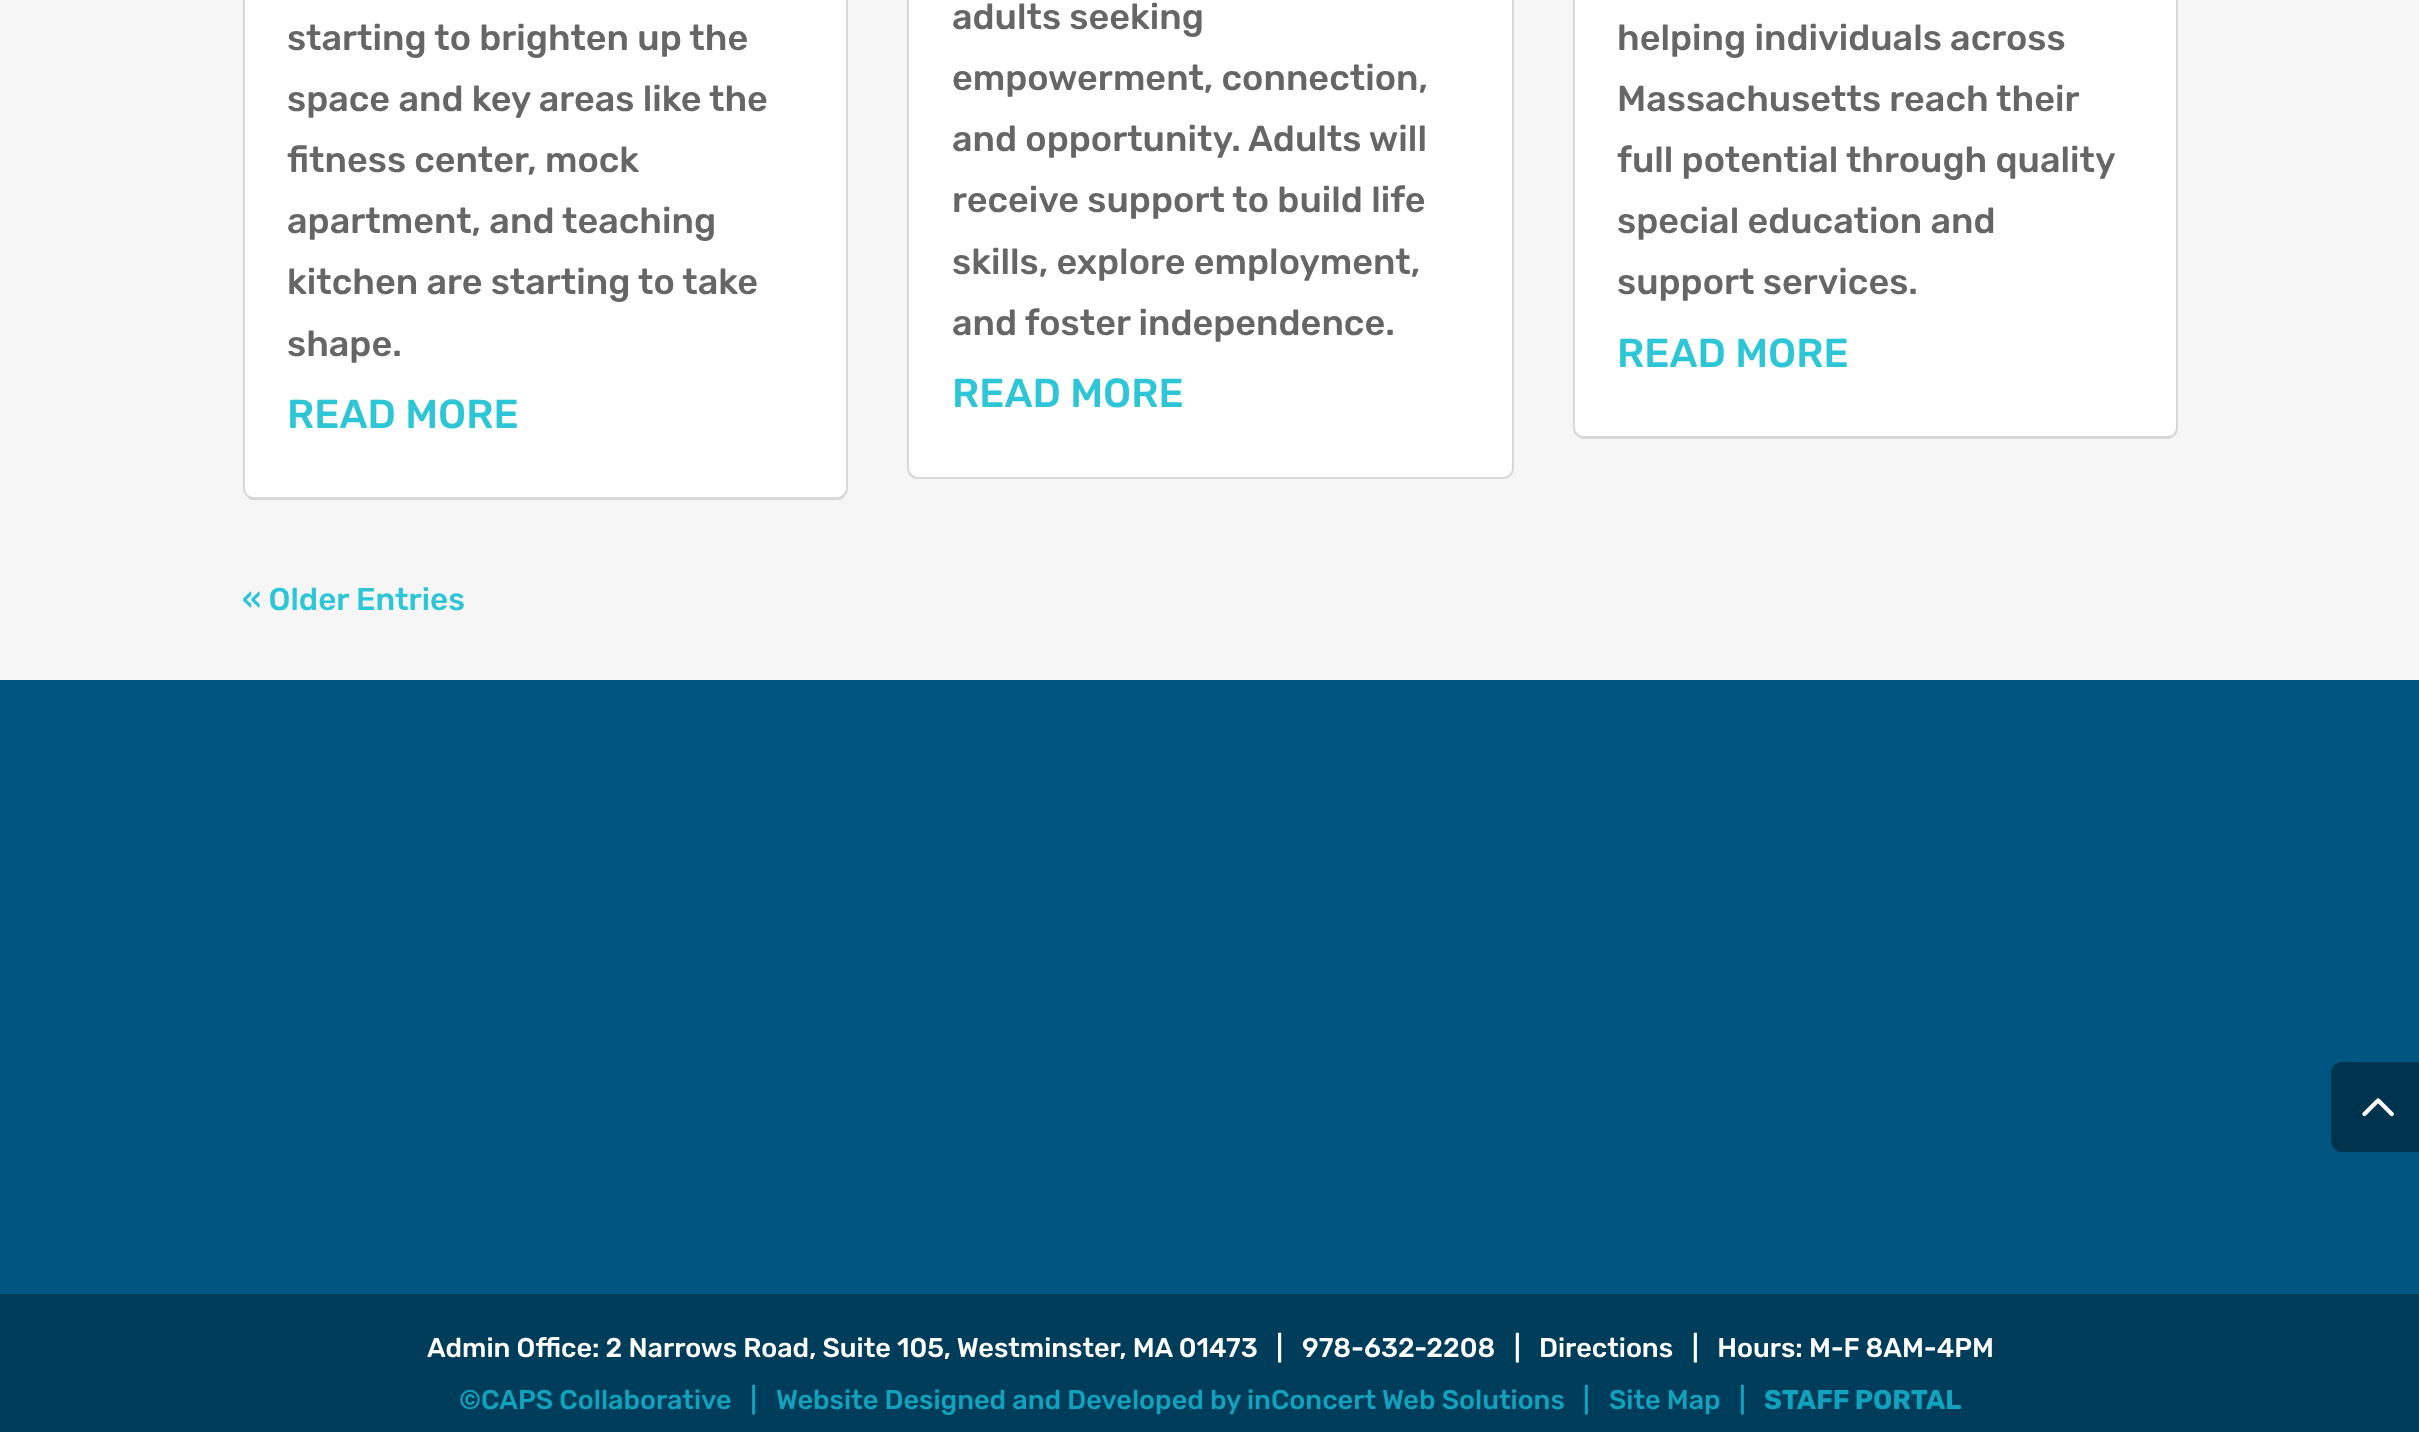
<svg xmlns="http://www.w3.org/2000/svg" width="2419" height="1432">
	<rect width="100%" height="100%" fill="#F6F6F6" />
	<path d="M254-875H846V488C846 493 842 497 837 497H254C249 497 245 493 245 488V-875Z" fill="#FFFFFF" />
	<path d="M847-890L848-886V488C848 491 847 494 845 496L843 494C845 493 846 491 846 488V-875Z" fill="#D8D8D8" />
	<path d="M251 500C249 499 248 498 246 496L248 495C249 496 252 497 254 497H837C839 497 842 496 843 494L845 496C844 498 842 499 840 500Z" fill="#D8D8D8" />
	<path d="M243-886V488C243 491 244 494 246 496L248 495C246 493 245 491 245 488V-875L244-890Z" fill="#D8D8D8" />
	<g font-family="Rubik" font-size="36" font-weight="300" fill="#666666">
		<text x="287" y="50">starting to brighten up the</text>
		<text x="287" y="111">space and key areas like the</text>
		<text x="287" y="172">fitness center, mock</text>
		<text x="287" y="233">apartment, and teaching</text>
		<text x="287" y="294">kitchen are starting to take</text>
		<text x="287" y="356">shape.</text>
	</g>
	<text x="287" y="428" font-family="Rubik" font-size="40.5" font-weight="300" fill="#2DC6D6">READ MORE</text>
	<path d="M918-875H1512V468C1512 473 1508 477 1503 477H918C913 477 909 473 909 468V-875Z" fill="#FFFFFF" />
	<path d="M1513-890L1514-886V468C1514 471 1513 474 1511 476L1509 474C1511 473 1512 470 1512 468V-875Z" fill="#D8D8D8" />
	<path d="M1511 476C1509 478 1506 479 1503 479H918C915 479 912 478 910 476L912 474C913 476 916 477 918 477H1503C1506 477 1508 476 1509 474Z" fill="#D8D8D8" />
	<path d="M910 476C908 474 907 471 907 468V-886L908-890L909-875V468C909 470 910 473 912 474Z" fill="#D8D8D8" />
	<g font-family="Rubik" font-size="36" font-weight="300" fill="#666666">
		<text x="952" y="29">adults seeking</text>
		<text x="952" y="90">empowerment, connection,</text>
		<text x="952" y="151">and opportunity. Adults will</text>
		<text x="952" y="212">receive support to build life</text>
		<text x="952" y="274">skills, explore employment,</text>
		<text x="952" y="335">and foster independence.</text>
	</g>
	<text x="952" y="407" font-family="Rubik" font-size="40.5" font-weight="300" fill="#2DC6D6">READ MORE</text>
	<path d="M1584-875H2176V428C2176 432 2172 436 2167 436H1584C1579 436 1575 432 1575 428V-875Z" fill="#FFFFFF" />
	<path d="M2178 428V-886L2177-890L2176-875V428C2176 430 2175 432 2173 434L2175 436C2177 434 2178 431 2178 428Z" fill="#D8D8D8" />
	<path d="M1582 439C1579 438 1578 437 1576 435L1578 434C1579 435 1582 436 1584 436H2167C2169 436 2171 435 2173 434L2175 436C2173 437 2171 438 2169 439Z" fill="#D8D8D8" />
	<path d="M1576 435C1574 434 1573 431 1573 428V-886L1574-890L1575-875V428C1575 430 1576 432 1578 434Z" fill="#D8D8D8" />
	<g font-family="Rubik" font-size="36" font-weight="300" fill="#666666">
		<text x="1617" y="50">helping individuals across</text>
		<text x="1617" y="111">Massachusetts reach their</text>
		<text x="1617" y="172">full potential through quality</text>
		<text x="1617" y="233">special education and</text>
		<text x="1617" y="294">support services.</text>
	</g>
	<text x="1617" y="367" font-family="Rubik" font-size="40.5" font-weight="300" fill="#2DC6D6">READ MORE</text>
	<text x="242" y="610" font-family="Rubik" font-size="31.5" font-weight="300" fill="#2DC6D6">« Older Entries</text>
	<rect x="0" y="680" width="2419" height="614" fill="#005581" />
	<rect x="0" y="1294" width="2419" height="138" fill="#003D5B" />
	<g font-family="Rubik" font-size="27" font-weight="300" fill="#FFFFFF">
		<text x="427" y="1357" xml:space="preserve">Admin Office: 2 Narrows Road, Suite 105, Westminster, MA 01473   |</text>
		<text x="1302" y="1357">978-632-2208</text>
		<text x="1514" y="1357">|</text>
		<text x="1539" y="1357">Directions</text>
		<text x="1692" y="1357" xml:space="preserve">|   Hours: M-F 8AM-4PM</text>
	</g>
	<g font-family="Rubik" font-size="27" font-weight="300" fill="#11A2BD">
		<text x="459" y="1409" xml:space="preserve">©CAPS Collaborative   |</text>
		<text x="776" y="1409">Website Designed and Developed by inConcert Web Solutions</text>
		<text x="1583" y="1409">|</text>
		<text x="1609" y="1409">Site Map</text>
		<text x="1739" y="1409">|</text>
	</g>
	<text x="1764" y="1409" font-family="'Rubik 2'" font-size="27" font-weight="300" fill="#11A2BD">STAFF PORTAL</text>
	<path d="M2342 1062H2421V1152H2342C2336 1152 2331 1147 2331 1141V1073C2331 1067 2336 1062 2342 1062Z" fill="#00334D" />
	<image x="2362" y="1098" width="32" height="19" href="assets/img1.png" />
</svg>
